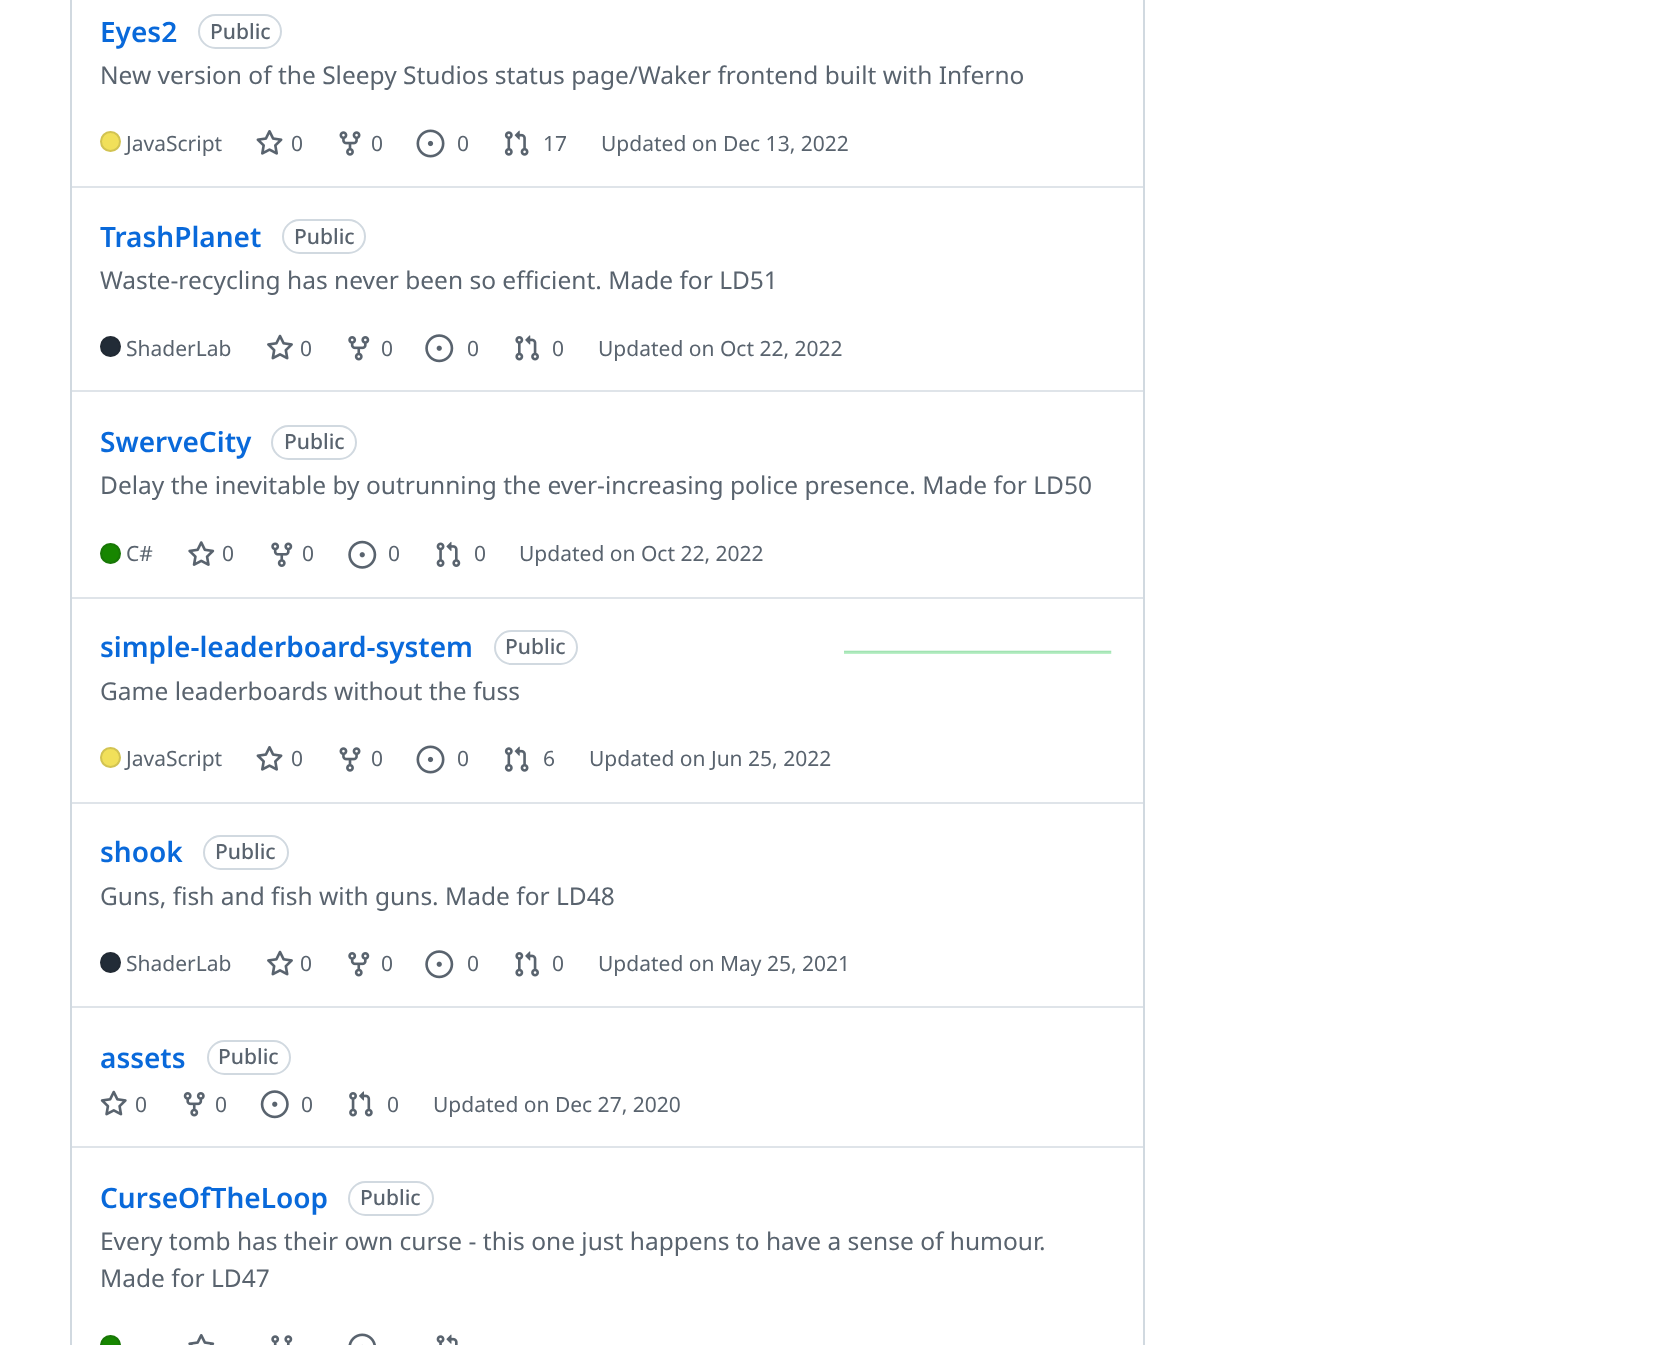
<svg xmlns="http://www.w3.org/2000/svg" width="1657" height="1345">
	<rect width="100%" height="100%" fill="#FFFFFF" />
	<rect x="71" y="-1" width="1073" height="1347" fill="none" stroke="#D1D9E0" stroke-width="2" />
	<text x="100" y="42" font-family="Noto Sans" font-size="28" font-weight="600" fill="#0969DA">Eyes2</text>
	<rect x="199" y="15" width="82" height="33" rx="16.5" fill="none" stroke="#D1D9E0" stroke-width="2" />
	<text x="210" y="39" font-family="Noto Sans" font-size="21" font-weight="500" fill="#59636E">Public</text>
	<text x="100" y="84" font-family="Noto Sans" font-size="24.5" fill="#59636E">New version of the Sleepy Studios status page/Waker frontend built with Inferno</text>
	<circle cx="110.5" cy="141.5" r="10.5" fill="#F1E05A" />
	<circle cx="110.5" cy="141.5" r="9.5" fill="none" stroke="#1F2328" stroke-opacity="0.15" stroke-width="2" />
	<text x="126" y="151" font-family="Noto Sans" font-size="21" fill="#59636E">JavaScript</text>
	<image x="256" y="130" width="27" height="25" href="assets/img1.png" />
	<text x="291" y="151" font-family="Noto Sans" font-size="21" fill="#59636E">0</text>
	<image x="339" y="131" width="22" height="25" href="assets/img2.png" />
	<text x="371" y="151" font-family="Noto Sans" font-size="21" fill="#59636E">0</text>
	<image x="416" y="129" width="29" height="29" href="assets/img3.png" />
	<text x="457" y="151" font-family="Noto Sans" font-size="21" fill="#59636E">0</text>
	<image x="504" y="130" width="25" height="26" href="assets/img4.png" />
	<g font-family="Noto Sans" font-size="21" fill="#59636E">
		<text x="543" y="151">17</text>
		<text x="601" y="151">Updated on Dec 13, 2022</text>
	</g>
	<rect x="72" y="186" width="1071" height="2" fill="#DFE4E9" />
	<text x="100" y="247" font-family="Noto Sans" font-size="28" font-weight="600" fill="#0969DA">TrashPlanet</text>
	<rect x="283" y="220" width="82" height="33" rx="16.5" fill="none" stroke="#D1D9E0" stroke-width="2" />
	<text x="294" y="244" font-family="Noto Sans" font-size="21" font-weight="500" fill="#59636E">Public</text>
	<text x="100" y="289" font-family="Noto Sans" font-size="24.5" fill="#59636E">Waste-recycling has never been so efficient. Made for LD51</text>
	<circle cx="110.5" cy="346.5" r="10.5" fill="#222C37" />
	<circle cx="110.5" cy="346.5" r="9.5" fill="none" stroke="#1F2328" stroke-opacity="0.15" stroke-width="2" />
	<text x="126" y="356" font-family="Noto Sans" font-size="21" fill="#59636E">ShaderLab</text>
	<image x="267" y="334" width="26" height="26" href="assets/img5.png" />
	<text x="300" y="356" font-family="Noto Sans" font-size="21" fill="#59636E">0</text>
	<image x="348" y="336" width="22" height="25" href="assets/img6.png" />
	<text x="381" y="356" font-family="Noto Sans" font-size="21" fill="#59636E">0</text>
	<image x="425" y="334" width="29" height="29" href="assets/img7.png" />
	<text x="467" y="356" font-family="Noto Sans" font-size="21" fill="#59636E">0</text>
	<image x="515" y="335" width="24" height="26" href="assets/img8.png" />
	<g font-family="Noto Sans" font-size="21" fill="#59636E">
		<text x="552" y="356">0</text>
		<text x="598" y="356">Updated on Oct 22, 2022</text>
	</g>
	<rect x="72" y="390" width="1071" height="2" fill="#DFE4E9" />
	<text x="100" y="452" font-family="Noto Sans" font-size="28" font-weight="600" fill="#0969DA">SwerveCity</text>
	<rect x="272" y="426" width="84" height="33" rx="16.5" fill="none" stroke="#D1D9E0" stroke-width="2" />
	<text x="284" y="449" font-family="Noto Sans" font-size="21" font-weight="500" fill="#59636E">Public</text>
	<text x="100" y="494" font-family="Noto Sans" font-size="24.5" fill="#59636E">Delay the inevitable by outrunning the ever-increasing police presence. Made for LD50</text>
	<circle cx="110.5" cy="553.5" r="10.5" fill="#178600" />
	<circle cx="110.5" cy="553.5" r="9.5" fill="none" stroke="#1F2328" stroke-opacity="0.15" stroke-width="2" />
	<text x="126" y="561" font-family="Noto Sans" font-size="21" fill="#59636E">C#</text>
	<image x="188" y="541" width="27" height="25" href="assets/img9.png" />
	<text x="222" y="561" font-family="Noto Sans" font-size="21" fill="#59636E">0</text>
	<image x="271" y="542" width="22" height="25" href="assets/img10.png" />
	<text x="302" y="561" font-family="Noto Sans" font-size="21" fill="#59636E">0</text>
	<image x="348" y="540" width="29" height="29" href="assets/img11.png" />
	<text x="388" y="561" font-family="Noto Sans" font-size="21" fill="#59636E">0</text>
	<image x="436" y="541" width="25" height="26" href="assets/img12.png" />
	<g font-family="Noto Sans" font-size="21" fill="#59636E">
		<text x="474" y="561">0</text>
		<text x="519" y="561">Updated on Oct 22, 2022</text>
	</g>
	<rect x="72" y="597" width="1071" height="2" fill="#DFE4E9" />
	<text x="100" y="657" font-family="Noto Sans" font-size="28" font-weight="600" fill="#0969DA">simple-leaderboard-system</text>
	<rect x="495" y="631" width="82" height="33" rx="16.5" fill="none" stroke="#D1D9E0" stroke-width="2" />
	<text x="505" y="654" font-family="Noto Sans" font-size="21" font-weight="500" fill="#59636E">Public</text>
	<text x="100" y="700" font-family="Noto Sans" font-size="24.5" fill="#59636E">Game leaderboards without the fuss</text>
	<image x="844" y="650" width="268" height="4" href="assets/img13.png" />
	<circle cx="110.5" cy="757.5" r="10.5" fill="#F1E05A" />
	<circle cx="110.5" cy="757.5" r="9.5" fill="none" stroke="#1F2328" stroke-opacity="0.15" stroke-width="2" />
	<text x="126" y="766" font-family="Noto Sans" font-size="21" fill="#59636E">JavaScript</text>
	<image x="256" y="746" width="27" height="25" href="assets/img1.png" />
	<text x="291" y="766" font-family="Noto Sans" font-size="21" fill="#59636E">0</text>
	<image x="339" y="747" width="22" height="25" href="assets/img2.png" />
	<text x="371" y="766" font-family="Noto Sans" font-size="21" fill="#59636E">0</text>
	<image x="416" y="745" width="29" height="29" href="assets/img3.png" />
	<text x="457" y="766" font-family="Noto Sans" font-size="21" fill="#59636E">0</text>
	<image x="504" y="746" width="25" height="26" href="assets/img4.png" />
	<g font-family="Noto Sans" font-size="21" fill="#59636E">
		<text x="543" y="766">6</text>
		<text x="589" y="766">Updated on Jun 25, 2022</text>
	</g>
	<rect x="72" y="802" width="1071" height="2" fill="#DFE4E9" />
	<text x="100" y="862" font-family="Noto Sans" font-size="28" font-weight="600" fill="#0969DA">shook</text>
	<rect x="204" y="836" width="84" height="33" rx="16.5" fill="none" stroke="#D1D9E0" stroke-width="2" />
	<text x="215" y="859" font-family="Noto Sans" font-size="21" font-weight="500" fill="#59636E">Public</text>
	<text x="100" y="905" font-family="Noto Sans" font-size="24.5" fill="#59636E">Guns, fish and fish with guns. Made for LD48</text>
	<circle cx="110.5" cy="962.5" r="10.5" fill="#222C37" />
	<circle cx="110.5" cy="962.5" r="9.5" fill="none" stroke="#1F2328" stroke-opacity="0.15" stroke-width="2" />
	<text x="126" y="971" font-family="Noto Sans" font-size="21" fill="#59636E">ShaderLab</text>
	<image x="267" y="950" width="26" height="26" href="assets/img5.png" />
	<text x="300" y="971" font-family="Noto Sans" font-size="21" fill="#59636E">0</text>
	<image x="348" y="952" width="22" height="25" href="assets/img6.png" />
	<text x="381" y="971" font-family="Noto Sans" font-size="21" fill="#59636E">0</text>
	<image x="425" y="950" width="29" height="29" href="assets/img7.png" />
	<text x="467" y="971" font-family="Noto Sans" font-size="21" fill="#59636E">0</text>
	<image x="515" y="951" width="24" height="26" href="assets/img8.png" />
	<g font-family="Noto Sans" font-size="21" fill="#59636E">
		<text x="552" y="971">0</text>
		<text x="598" y="971">Updated on May 25, 2021</text>
	</g>
	<rect x="72" y="1006" width="1071" height="2" fill="#DFE4E9" />
	<text x="100" y="1068" font-family="Noto Sans" font-size="28" font-weight="600" fill="#0969DA">assets</text>
	<rect x="208" y="1041" width="82" height="33" rx="16.5" fill="none" stroke="#D1D9E0" stroke-width="2" />
	<text x="218" y="1064" font-family="Noto Sans" font-size="21" font-weight="500" fill="#59636E">Public</text>
	<image x="100" y="1090" width="27" height="26" href="assets/img14.png" />
	<text x="135" y="1112" font-family="Noto Sans" font-size="21" fill="#59636E">0</text>
	<image x="183" y="1092" width="22" height="25" href="assets/img15.png" />
	<text x="215" y="1112" font-family="Noto Sans" font-size="21" fill="#59636E">0</text>
	<image x="260" y="1090" width="29" height="29" href="assets/img16.png" />
	<text x="301" y="1112" font-family="Noto Sans" font-size="21" fill="#59636E">0</text>
	<image x="349" y="1091" width="24" height="26" href="assets/img17.png" />
	<g font-family="Noto Sans" font-size="21" fill="#59636E">
		<text x="387" y="1112">0</text>
		<text x="433" y="1112">Updated on Dec 27, 2020</text>
	</g>
	<rect x="72" y="1146" width="1071" height="2" fill="#DFE4E9" />
	<text x="100" y="1208" font-family="Noto Sans" font-size="28" font-weight="600" fill="#0969DA">CurseOfTheLoop</text>
	<rect x="349" y="1182" width="84" height="33" rx="16.5" fill="none" stroke="#D1D9E0" stroke-width="2" />
	<text x="360" y="1205" font-family="Noto Sans" font-size="21" font-weight="500" fill="#59636E">Public</text>
	<g font-family="Noto Sans" font-size="24.5" fill="#59636E">
		<text x="100" y="1250">Every tomb has their own curse - this one just happens to have a sense of humour.</text>
		<text x="100" y="1287">Made for LD47</text>
	</g>
	<circle cx="110.5" cy="1345.5" r="10.5" fill="#178600" />
	<circle cx="110.5" cy="1345.5" r="9.5" fill="none" stroke="#1F2328" stroke-opacity="0.15" stroke-width="2" />
	<image x="188" y="1334" width="27" height="11" href="assets/img18.png" />
	<image x="271" y="1335" width="22" height="10" href="assets/img19.png" />
	<image x="348" y="1333" width="28" height="12" href="assets/img20.png" />
	<image x="436" y="1334" width="22" height="11" href="assets/img21.png" />
</svg>
